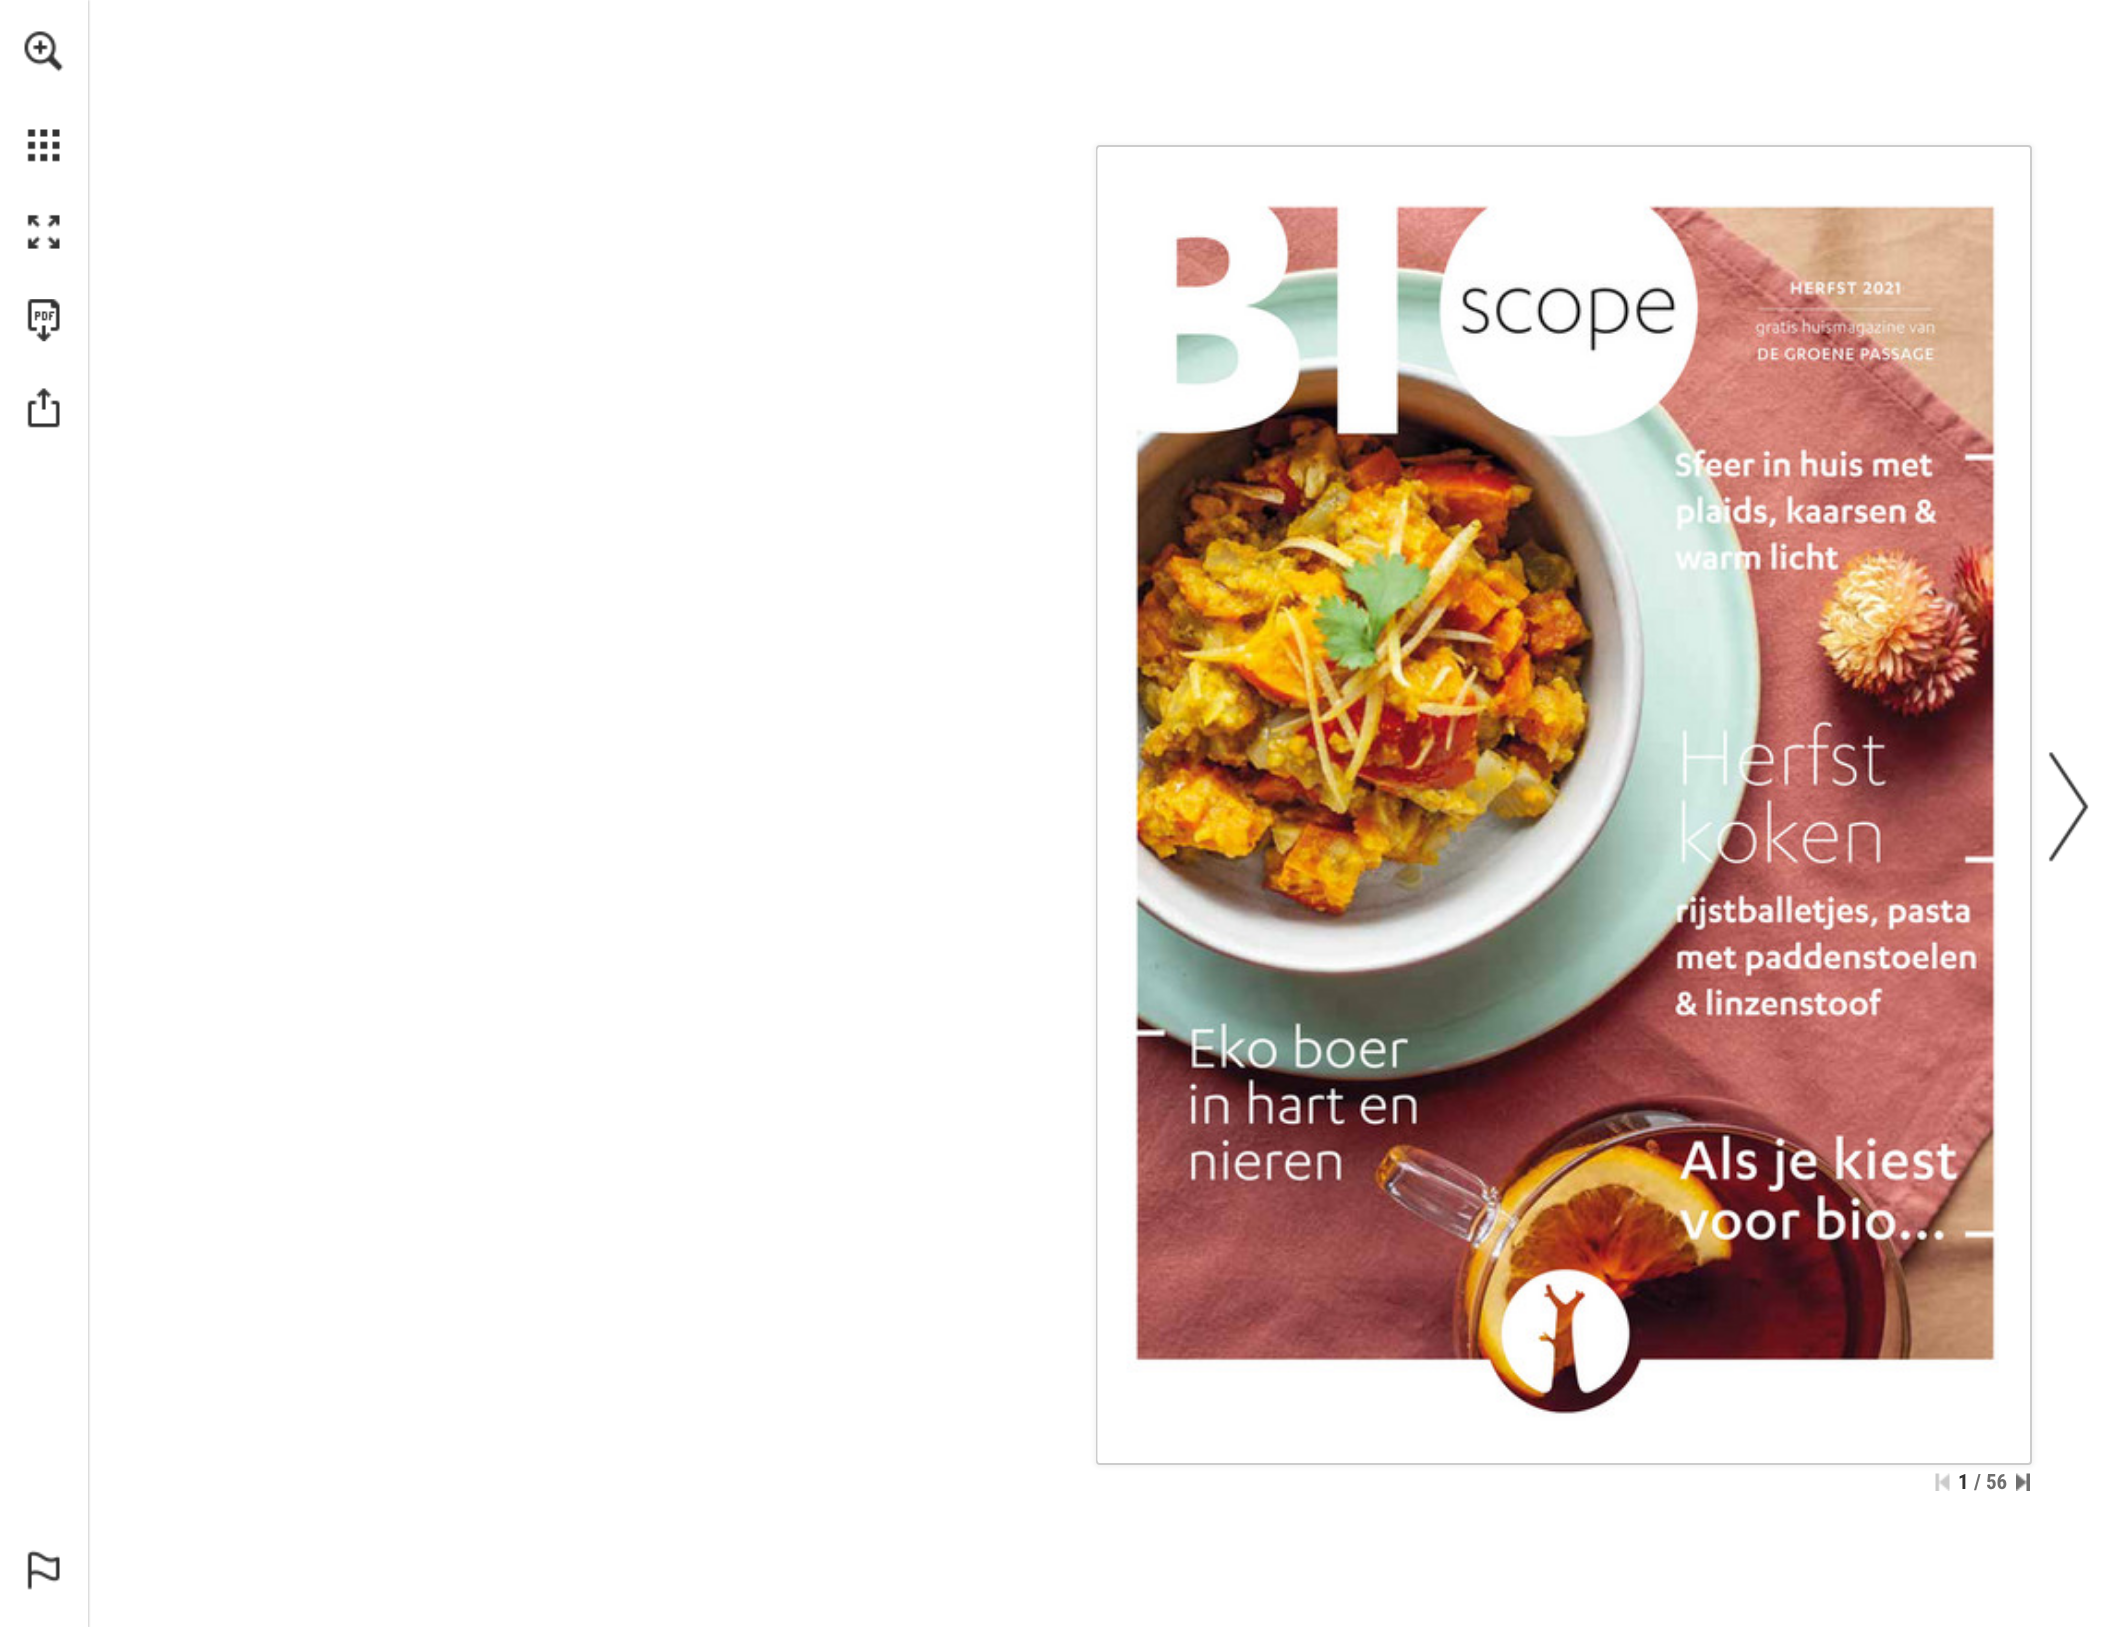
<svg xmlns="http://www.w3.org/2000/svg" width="2106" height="1627">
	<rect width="100%" height="100%" fill="#FFFFFF" />
	<rect x="2" y="0" width="87" height="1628" fill="#000000" fill-opacity="0.2" filter="blur(1px)" />
	<rect x="0" y="0" width="88" height="1627" fill="#FFFFFF" />
	<image x="24" y="31" width="40" height="41" href="assets/img1.png" />
	<image x="27" y="129" width="33" height="33" href="assets/img2.png" />
	<image x="27" y="214" width="33" height="35" href="assets/img3.png" />
	<image x="27" y="299" width="33" height="43" href="assets/img4.png" />
	<image x="27" y="388" width="33" height="40" href="assets/img5.png" />
	<image x="27" y="1550" width="33" height="40" href="assets/img6.png" />
	<rect x="1094" y="144" width="940" height="1323" rx="5" fill="#121212" fill-opacity="0.05" filter="blur(2px)" />
	<rect x="1097" y="146" width="934" height="1318" rx="3" fill="#FFFFFF" stroke="#CCCCCC" stroke-width="2" />
	<image x="1097" y="147" width="902" height="1316" href="assets/img7.png" />
	<image x="2048" y="752" width="41" height="110" href="assets/img8.png" />
	<image x="1935" y="1473" width="15" height="18" href="assets/img9.png" />
	<text x="1958" y="1489" font-family="Roboto Condensed" font-size="21" font-weight="700" fill="#333333">1</text>
	<g font-family="Roboto Condensed" font-size="21" font-weight="700" fill="#707070">
		<text x="1974" y="1489">/</text>
		<text x="1986" y="1489">56</text>
	</g>
	<image x="2016" y="1473" width="14" height="18" href="assets/img10.png" />
</svg>
